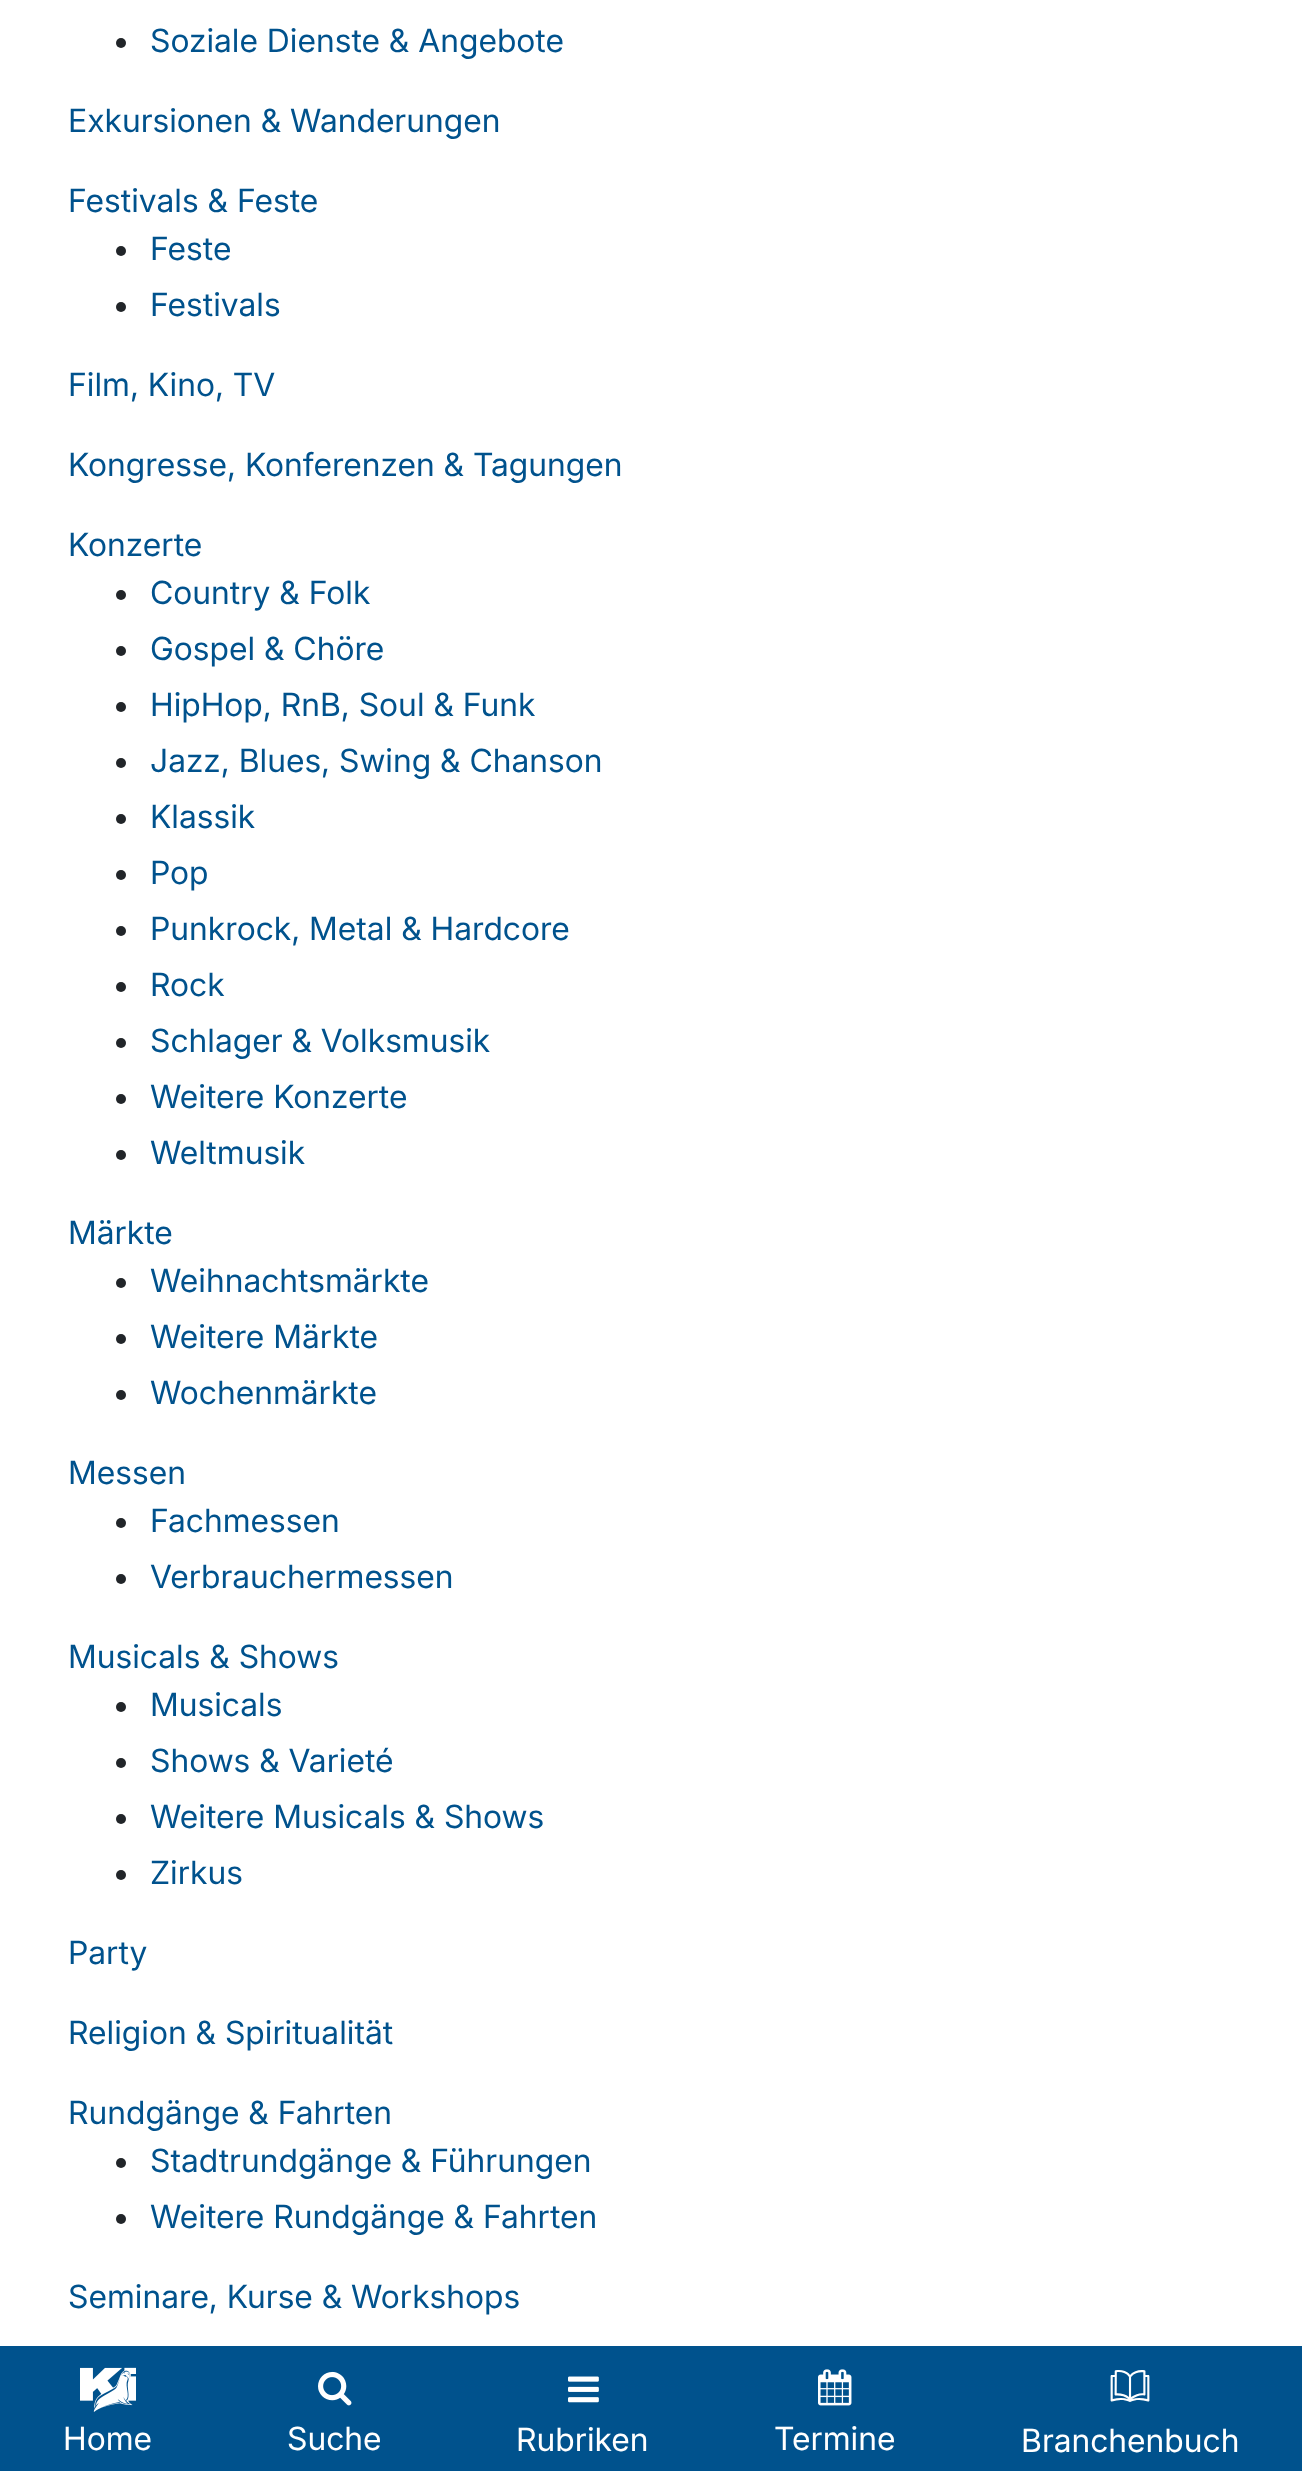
<svg xmlns="http://www.w3.org/2000/svg" width="1302" height="2471">
	<rect width="100%" height="100%" fill="#FFFFFF" />
	<circle cx="121" cy="43" r="5" fill="#212529" />
	<g font-family="Inter" font-size="32" fill="#00528D">
		<text x="150" y="52">Soziale Dienste &amp; Angebote</text>
		<text x="68" y="132">Exkursionen &amp; Wanderungen</text>
		<text x="68" y="212">Festivals &amp; Feste</text>
	</g>
	<circle cx="121" cy="251" r="5" fill="#212529" />
	<text x="150" y="260" font-family="Inter" font-size="32" fill="#00528D">Feste</text>
	<circle cx="121" cy="307" r="5" fill="#212529" />
	<g font-family="Inter" font-size="32" fill="#00528D">
		<text x="150" y="316">Festivals</text>
		<text x="68" y="396">Film, Kino, TV</text>
		<text x="68" y="476">Kongresse, Konferenzen &amp; Tagungen</text>
		<text x="68" y="556">Konzerte</text>
	</g>
	<circle cx="121" cy="595" r="5" fill="#212529" />
	<text x="150" y="604" font-family="Inter" font-size="32" fill="#00528D">Country &amp; Folk</text>
	<circle cx="121" cy="651" r="5" fill="#212529" />
	<text x="150" y="660" font-family="Inter" font-size="32" fill="#00528D">Gospel &amp; Chöre</text>
	<circle cx="121" cy="707" r="5" fill="#212529" />
	<text x="150" y="716" font-family="Inter" font-size="32" fill="#00528D">HipHop, RnB, Soul &amp; Funk</text>
	<circle cx="121" cy="763" r="5" fill="#212529" />
	<text x="150" y="772" font-family="Inter" font-size="32" fill="#00528D">Jazz, Blues, Swing &amp; Chanson</text>
	<circle cx="121" cy="819" r="5" fill="#212529" />
	<text x="150" y="828" font-family="Inter" font-size="32" fill="#00528D">Klassik</text>
	<circle cx="121" cy="875" r="5" fill="#212529" />
	<text x="150" y="884" font-family="Inter" font-size="32" fill="#00528D">Pop</text>
	<circle cx="121" cy="931" r="5" fill="#212529" />
	<text x="150" y="940" font-family="Inter" font-size="32" fill="#00528D">Punkrock, Metal &amp; Hardcore</text>
	<circle cx="121" cy="987" r="5" fill="#212529" />
	<text x="150" y="996" font-family="Inter" font-size="32" fill="#00528D">Rock</text>
	<circle cx="121" cy="1043" r="5" fill="#212529" />
	<text x="150" y="1052" font-family="Inter" font-size="32" fill="#00528D">Schlager &amp; Volksmusik</text>
	<circle cx="121" cy="1099" r="5" fill="#212529" />
	<text x="150" y="1108" font-family="Inter" font-size="32" fill="#00528D">Weitere Konzerte</text>
	<circle cx="121" cy="1155" r="5" fill="#212529" />
	<g font-family="Inter" font-size="32" fill="#00528D">
		<text x="150" y="1164">Weltmusik</text>
		<text x="68" y="1244">Märkte</text>
	</g>
	<circle cx="121" cy="1283" r="5" fill="#212529" />
	<text x="150" y="1292" font-family="Inter" font-size="32" fill="#00528D">Weihnachtsmärkte</text>
	<circle cx="121" cy="1339" r="5" fill="#212529" />
	<text x="150" y="1348" font-family="Inter" font-size="32" fill="#00528D">Weitere Märkte</text>
	<circle cx="121" cy="1395" r="5" fill="#212529" />
	<g font-family="Inter" font-size="32" fill="#00528D">
		<text x="150" y="1404">Wochenmärkte</text>
		<text x="68" y="1484">Messen</text>
	</g>
	<circle cx="121" cy="1523" r="5" fill="#212529" />
	<text x="150" y="1532" font-family="Inter" font-size="32" fill="#00528D">Fachmessen</text>
	<circle cx="121" cy="1579" r="5" fill="#212529" />
	<g font-family="Inter" font-size="32" fill="#00528D">
		<text x="150" y="1588">Verbrauchermessen</text>
		<text x="68" y="1668">Musicals &amp; Shows</text>
	</g>
	<circle cx="121" cy="1707" r="5" fill="#212529" />
	<text x="150" y="1716" font-family="Inter" font-size="32" fill="#00528D">Musicals</text>
	<circle cx="121" cy="1763" r="5" fill="#212529" />
	<text x="150" y="1772" font-family="Inter" font-size="32" fill="#00528D">Shows &amp; Varieté</text>
	<circle cx="121" cy="1819" r="5" fill="#212529" />
	<text x="150" y="1828" font-family="Inter" font-size="32" fill="#00528D">Weitere Musicals &amp; Shows</text>
	<circle cx="121" cy="1875" r="5" fill="#212529" />
	<g font-family="Inter" font-size="32" fill="#00528D">
		<text x="150" y="1884">Zirkus</text>
		<text x="68" y="1964">Party</text>
		<text x="68" y="2044">Religion &amp; Spiritualität</text>
		<text x="68" y="2124">Rundgänge &amp; Fahrten</text>
	</g>
	<circle cx="121" cy="2163" r="5" fill="#212529" />
	<text x="150" y="2172" font-family="Inter" font-size="32" fill="#00528D">Stadtrundgänge &amp; Führungen</text>
	<circle cx="121" cy="2219" r="5" fill="#212529" />
	<g font-family="Inter" font-size="32" fill="#00528D">
		<text x="150" y="2228">Weitere Rundgänge &amp; Fahrten</text>
		<text x="68" y="2308">Seminare, Kurse &amp; Workshops</text>
	</g>
	<rect x="0" y="2346" width="1302" height="125" fill="#00528D" />
	<image x="80" y="2367" width="56" height="45" href="assets/img1.png" />
	<text x="63" y="2450" font-family="Inter" font-size="32" fill="#FFFFFF">Home</text>
	<image x="318" y="2371" width="34" height="35" href="assets/img2.png" />
	<text x="287" y="2450" font-family="Inter" font-size="32" fill="#FFFFFF">Suche</text>
	<image x="568" y="2376" width="31" height="27" href="assets/img3.png" />
	<text x="516" y="2451" font-family="Inter" font-size="32" fill="#FFFFFF">Rubriken</text>
	<image x="818" y="2369" width="34" height="37" href="assets/img4.png" />
	<text x="774" y="2450" font-family="Inter" font-size="32" fill="#FFFFFF">Termine</text>
	<image x="1110" y="2370" width="40" height="32" href="assets/img5.png" />
	<text x="1021" y="2452" font-family="Inter" font-size="32" fill="#FFFFFF">Branchenbuch</text>
</svg>
